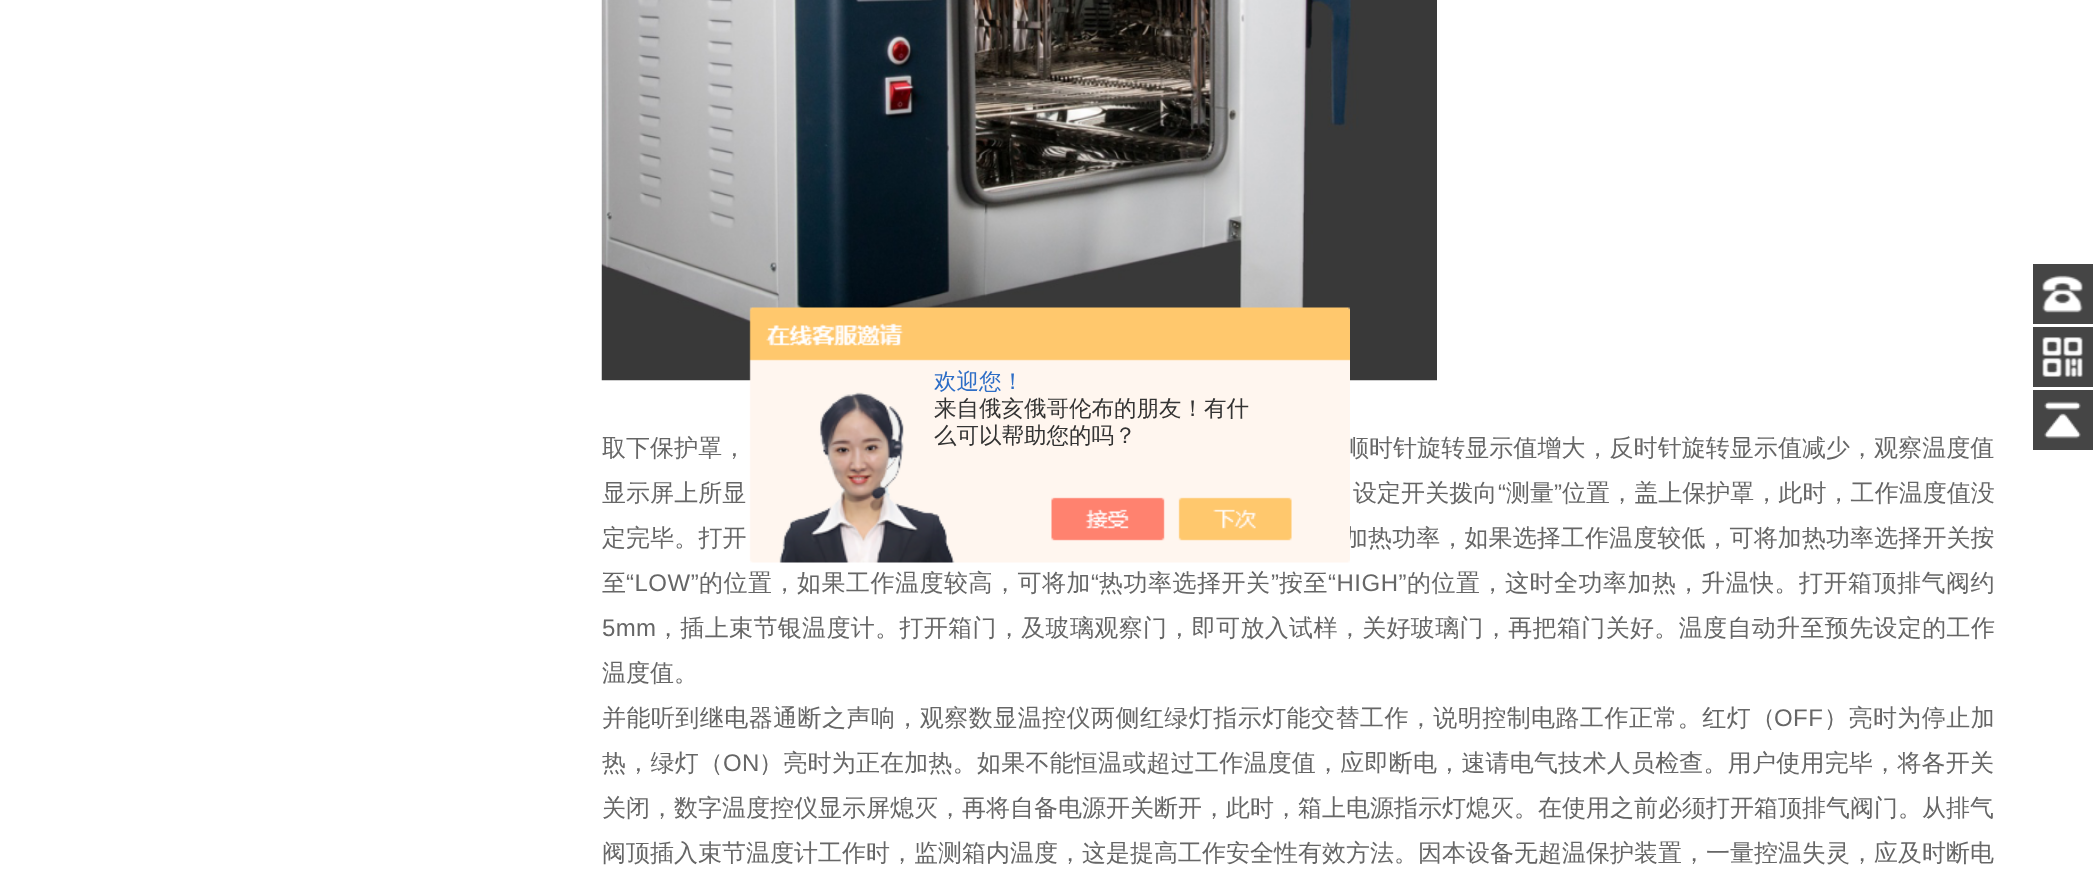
<svg xmlns="http://www.w3.org/2000/svg" width="2098" height="870">
	<rect width="100%" height="100%" fill="#FFFFFF" />
	<image x="601" y="0" width="836" height="381" href="assets/img5.png" />
	<text x="1345" y="456" font-family="WenQuanYi Zen Hei" font-size="24" font-weight="500" letter-spacing="0.05" fill="#666666">顺时针旋转显示值增大，反时针旋转显示值减少，观察温度值</text>
	<text x="1344" y="546" font-family="WenQuanYi Zen Hei" font-size="24" font-weight="500" letter-spacing="0.1" fill="#666666">加热功率，如果选择工作温度较低，可将加热功率选择开关按</text>
	<image x="749" y="307" width="601" height="256" href="assets/img1.png" />
	<text x="934" y="389" font-family="WenQuanYi Zen Hei" font-size="22.5" font-weight="500" fill="#2E6EC6">欢迎您！</text>
	<g font-family="WenQuanYi Zen Hei" font-size="22.5" font-weight="500" fill="#333333">
		<text x="934" y="416">来自俄亥俄哥伦布的朋友！有什</text>
		<text x="934" y="443">么可以帮助您的吗？</text>
	</g>
	<rect x="2033" y="264" width="60" height="60" fill="#454545" />
	<image x="2042" y="275" width="41" height="38" href="assets/img2.png" />
	<rect x="2033" y="327" width="60" height="60" fill="#454545" />
	<image x="2042" y="337" width="41" height="40" href="assets/img3.png" />
	<rect x="2033" y="390" width="60" height="60" fill="#454545" />
	<image x="2044" y="401" width="37" height="38" href="assets/img4.png" />
	<g font-family="WenQuanYi Zen Hei" font-size="24" font-weight="500" letter-spacing="0.05" fill="#666666">
		<text x="602" y="456">取下保护罩，</text>
		<text x="602" y="501">显示屏上所显</text>
		<text x="1353" y="501">设定开关拨向</text>
	</g>
	<text x="1498" y="501" font-family="Liberation Sans" font-size="24" letter-spacing="0.05" fill="#666666">“</text>
	<text x="1506" y="501" font-family="WenQuanYi Zen Hei" font-size="24" font-weight="500" letter-spacing="0.05" fill="#666666">测量</text>
	<text x="1554" y="501" font-family="Liberation Sans" font-size="24" letter-spacing="0.05" fill="#666666">”</text>
	<text x="1562" y="501" font-family="WenQuanYi Zen Hei" font-size="24" font-weight="500" letter-spacing="0.05" fill="#666666">位置，盖上保护罩，此时，工作温度值没</text>
	<text x="602" y="546" font-family="WenQuanYi Zen Hei" font-size="24" font-weight="500" letter-spacing="0.1" fill="#666666">定完毕。打开</text>
	<text x="602" y="591" font-family="WenQuanYi Zen Hei" font-size="24" font-weight="500" letter-spacing="0.5" fill="#666666">至</text>
	<text x="626" y="591" font-family="Liberation Sans" font-size="24" letter-spacing="0.5" fill="#666666">“LOW”</text>
	<text x="699" y="591" font-family="WenQuanYi Zen Hei" font-size="24" font-weight="500" letter-spacing="0.5" fill="#666666">的位置，如果工作温度较高，可将加</text>
	<text x="1091" y="591" font-family="Liberation Sans" font-size="24" letter-spacing="0.5" fill="#666666">“</text>
	<text x="1099" y="591" font-family="WenQuanYi Zen Hei" font-size="24" font-weight="500" letter-spacing="0.5" fill="#666666">热功率选择开关</text>
	<text x="1271" y="591" font-family="Liberation Sans" font-size="24" letter-spacing="0.5" fill="#666666">”</text>
	<text x="1279" y="591" font-family="WenQuanYi Zen Hei" font-size="24" font-weight="500" letter-spacing="0.5" fill="#666666">按至</text>
	<text x="1328" y="591" font-family="Liberation Sans" font-size="24" letter-spacing="0.5" fill="#666666">“HIGH”</text>
	<text x="1407" y="591" font-family="WenQuanYi Zen Hei" font-size="24" font-weight="500" letter-spacing="0.5" fill="#666666">的位置，这时全功率加热，升温快。打开箱顶排气阀约</text>
	<text x="602" y="636" font-family="Liberation Sans" font-size="24" letter-spacing="0.35" fill="#666666">5mm</text>
	<text x="656" y="636" font-family="WenQuanYi Zen Hei" font-size="24" font-weight="500" letter-spacing="0.35" fill="#666666">，插上束节银温度计。打开箱门，及玻璃观察门，即可放入试样，关好玻璃门，再把箱门关好。温度自动升至预先设定的工作</text>
	<text x="602" y="681" font-family="WenQuanYi Zen Hei" font-size="24" font-weight="500" fill="#666666">温度值。</text>
	<text x="602" y="726" font-family="WenQuanYi Zen Hei" font-size="24" font-weight="500" letter-spacing="0.45" fill="#666666">并能听到继电器通断之声响，观察数显温控仪两侧红绿灯指示灯能交替工作，说明控制电路工作正常。红灯（</text>
	<text x="1774" y="726" font-family="Liberation Sans" font-size="24" letter-spacing="0.45" fill="#666666">OFF</text>
	<text x="1824" y="726" font-family="WenQuanYi Zen Hei" font-size="24" font-weight="500" letter-spacing="0.45" fill="#666666">）亮时为停止加</text>
	<text x="602" y="771" font-family="WenQuanYi Zen Hei" font-size="24" font-weight="500" letter-spacing="0.22" fill="#666666">热，绿灯（</text>
	<text x="723" y="771" font-family="Liberation Sans" font-size="24" letter-spacing="0.22" fill="#666666">ON</text>
	<text x="759" y="771" font-family="WenQuanYi Zen Hei" font-size="24" font-weight="500" letter-spacing="0.22" fill="#666666">）亮时为正在加热。如果不能恒温或超过工作温度值，应即断电，速请电气技术人员检查。用户使用完毕，将各开关</text>
	<g font-family="WenQuanYi Zen Hei" font-size="24" font-weight="500" fill="#666666">
		<text x="602" y="816">关闭，数字温度控仪显示屏熄灭，再将自备电源开关断开，此时，箱上电源指示灯熄灭。在使用之前必须打开箱顶排气阀门。从排气</text>
		<text x="602" y="861">阀顶插入束节温度计工作时，监测箱内温度，这是提高工作安全性有效方法。因本设备无超温保护装置，一量控温失灵，应及时断电</text>
	</g>
</svg>
